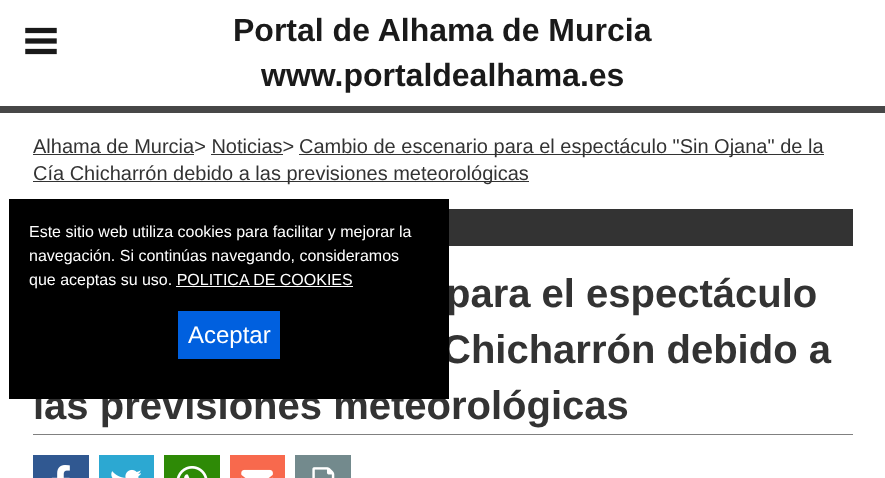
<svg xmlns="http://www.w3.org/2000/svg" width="885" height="478">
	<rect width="100%" height="100%" fill="#FFFFFF" />
	<rect x="0" y="106" width="885" height="7" fill="#474747" />
	<image x="25" y="27" width="32" height="28" href="assets/img1.png" />
	<g font-family="Liberation Sans" font-size="32" font-weight="700" fill="#1A1A1A">
		<text x="233" y="41">Portal de Alhama de Murcia</text>
		<text x="261" y="86">www.portaldealhama.es</text>
	</g>
	<text x="33" y="153" font-family="Liberation Sans" font-size="20" fill="#333333">Alhama de Murcia&gt; Noticias&gt;</text>
	<rect x="33" y="154" width="161" height="1" fill="#333333" />
	<rect x="299" y="154" width="525" height="1" fill="#333333" />
	<text x="299" y="153" font-family="Liberation Sans" font-size="20" fill="#333333">Cambio de escenario para el espectáculo "Sin Ojana" de la</text>
	<rect x="211" y="154" width="72" height="1" fill="#333333" />
	<rect x="33" y="181" width="496" height="1" fill="#333333" />
	<text x="33" y="180" font-family="Liberation Sans" font-size="20" fill="#333333">Cía Chicharrón debido a las previsiones meteorológicas</text>
	<rect x="449" y="209" width="404" height="37" fill="#333333" />
	<rect x="33" y="434" width="820" height="1" fill="#808080" />
	<g font-family="Liberation Sans" font-size="40" font-weight="700" fill="#333333">
		<text x="446" y="307">para el espectáculo</text>
		<text x="442" y="363">Chicharrón debido a</text>
		<text x="33" y="419">las previsiones meteorológicas</text>
	</g>
	<rect x="33" y="455" width="56" height="23" fill="#305891" />
	<image x="51" y="465" width="19" height="13" href="assets/img2.png" />
	<rect x="99" y="455" width="55" height="23" fill="#2CA8D2" />
	<image x="111" y="469" width="30" height="9" href="assets/img3.png" />
	<rect x="164" y="455" width="56" height="23" fill="#2E8A06" />
	<image x="176" y="466" width="32" height="12" href="assets/img4.png" />
	<rect x="230" y="455" width="55" height="23" fill="#F8694D" />
	<image x="241" y="469" width="32" height="9" href="assets/img5.png" />
	<rect x="295" y="455" width="56" height="23" fill="#738A8D" />
	<image x="312" y="467" width="23" height="11" href="assets/img6.png" />
	<rect x="9" y="199" width="440" height="200" fill="#000000" />
	<g font-family="Liberation Sans" font-size="16" fill="#FFFFFF">
		<text x="29" y="237">Este sitio web utiliza cookies para facilitar y mejorar la</text>
		<text x="29" y="261">navegación. Si continúas navegando, consideramos</text>
		<text x="29" y="285">que aceptas su uso. POLITICA DE COOKIES</text>
	</g>
	<rect x="176" y="286" width="177" height="1" fill="#FFFFFF" />
	<rect x="178" y="311" width="102" height="48" fill="#0060DF" />
	<text x="188" y="343" font-family="Liberation Sans" font-size="24" fill="#FFFFFF">Aceptar</text>
</svg>
